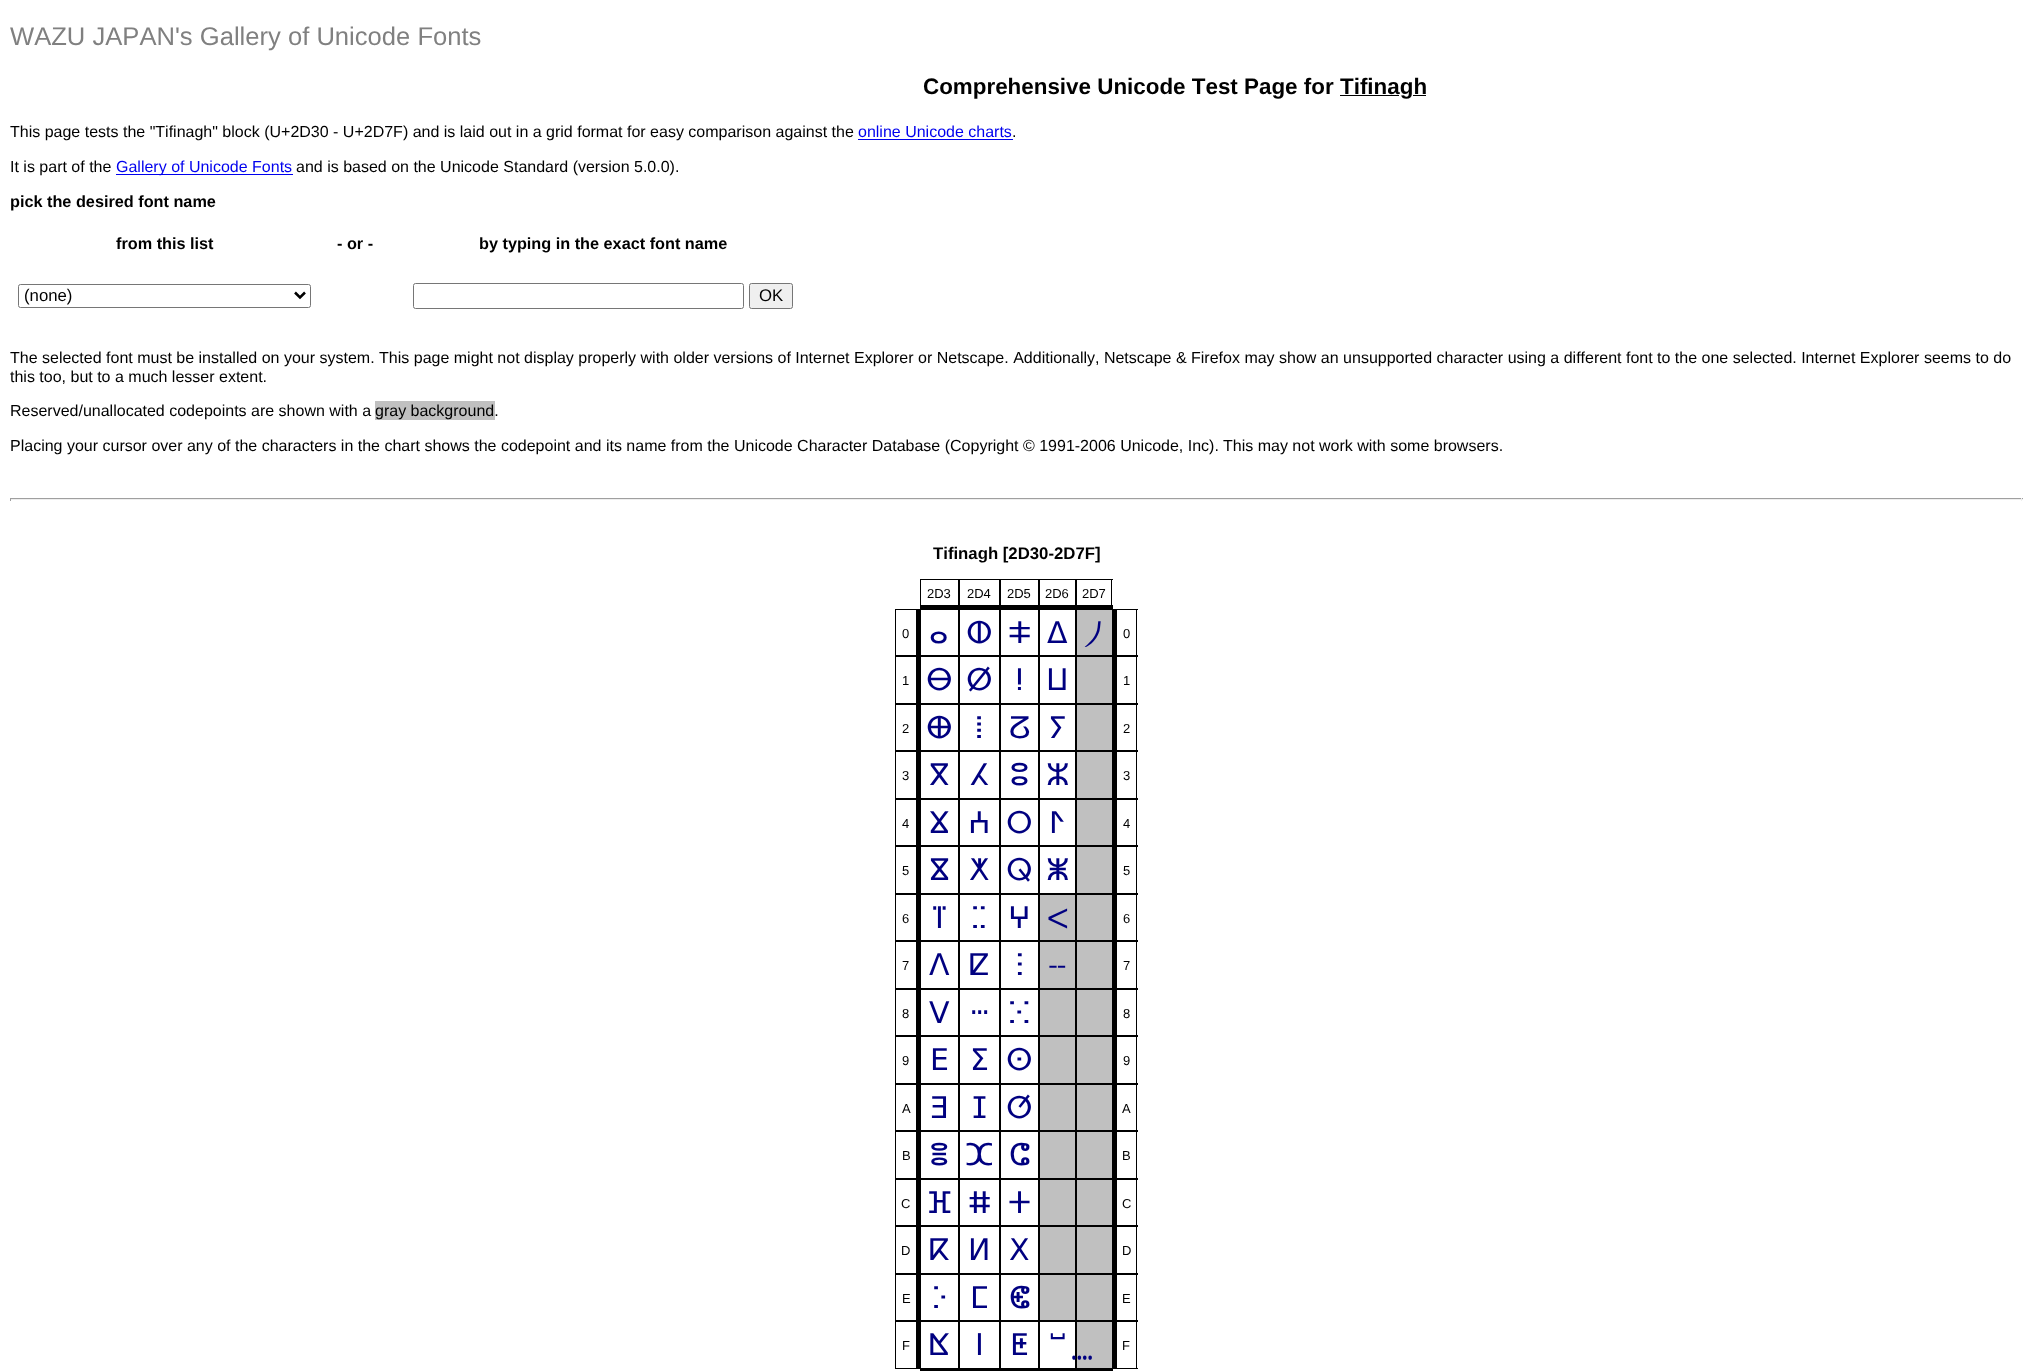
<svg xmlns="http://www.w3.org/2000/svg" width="2032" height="1371">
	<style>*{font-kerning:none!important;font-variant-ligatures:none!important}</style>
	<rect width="100%" height="100%" fill="#FFFFFF" />
	<text x="10" y="45" font-family="Liberation Sans" font-size="25.6" fill="#808080">WAZU JAPAN's Gallery of Unicode Fonts</text>
	<text x="923" y="94" font-family="Liberation Sans" font-size="22.4" font-weight="700" fill="#000000">Comprehensive Unicode Test Page for</text>
	<rect x="1340" y="95" width="59" height="1" fill="#000000" />
	<text x="1340" y="94" font-family="Liberation Sans" font-size="22.4" font-weight="700" fill="#000000">Tifinagh</text>
	<rect x="1413" y="95" width="13" height="1" fill="#000000" />
	<text x="10" y="137" font-family="Liberation Sans" font-size="16" fill="#000000">This page tests the "Tifinagh" block (U+2D30 - U+2D7F) and is laid out in a grid format for easy comparison against the</text>
	<text x="858" y="137" font-family="Liberation Sans" font-size="16" fill="#0000EE">online Unicode charts</text>
	<rect x="858" y="139" width="155" height="1" fill="#0000EE" />
	<g font-family="Liberation Sans" font-size="16" fill="#000000">
		<text x="1012" y="137">.</text>
		<text x="10" y="172">It is part of the</text>
	</g>
	<rect x="116" y="174" width="177" height="1" fill="#0000EE" />
	<text x="116" y="172" font-family="Liberation Sans" font-size="16" fill="#0000EE">Gallery of Unicode Fonts</text>
	<text x="296" y="172" font-family="Liberation Sans" font-size="16" fill="#000000">and is based on the Unicode Standard (version 5.0.0).</text>
	<g font-family="Liberation Sans" font-size="16.25" font-weight="700" fill="#000000">
		<text x="10" y="207">pick the desired font name</text>
		<text x="116" y="249">from this list</text>
		<text x="337" y="249">- or -</text>
		<text x="479" y="249">by typing in the exact font name</text>
	</g>
	<rect x="18.5" y="284.5" width="292" height="23" rx="2" fill="none" stroke="#767676" />
	<path d="M295 292.5L300 297.5L305 292.5" fill="none" stroke="#000000" stroke-width="2.5" />
	<text x="24" y="301" font-family="Liberation Sans" font-size="16.75" fill="#000000">(none)</text>
	<rect x="413.5" y="283.5" width="330" height="25" rx="2" fill="none" stroke="#767676" />
	<rect x="749.5" y="283.5" width="43" height="25" rx="2" fill="#EFEFEF" stroke="#767676" />
	<text x="759" y="301" font-family="Liberation Sans" font-size="16.75" fill="#000000">OK</text>
	<g font-family="Liberation Sans" font-size="16" fill="#000000">
		<text x="10" y="363">The selected font must be installed on your system. This page might not display properly with older versions of Internet Explorer or Netscape. Additionally, Netscape &amp; Firefox may show an unsupported character using a different font to the one selected. Internet Explorer seems to do</text>
		<text x="10" y="382">this too, but to a much lesser extent.</text>
		<text x="10" y="416">Reserved/unallocated codepoints are shown with a</text>
	</g>
	<rect x="375" y="401" width="120" height="19" fill="#C0C0C0" />
	<g font-family="Liberation Sans" font-size="16" fill="#000000">
		<text x="375" y="416">gray background.</text>
		<text x="10" y="451">Placing your cursor over any of the characters in the chart shows the codepoint and its name from the Unicode Character Database (Copyright © 1991-2006 Unicode, Inc).</text>
		<text x="1223" y="451">This may not work with some browsers.</text>
	</g>
	<rect x="10" y="498" width="2013" height="1" fill="#9F9F9F" />
	<rect x="2021" y="498" width="1" height="3" fill="#EEEEEE" />
	<rect x="10" y="499" width="2013" height="1" fill="#EEEEEE" />
	<rect x="10" y="498" width="1" height="3" fill="#9F9F9F" />
	<text x="933" y="559" font-family="Liberation Sans" font-size="16.75" font-weight="700" fill="#000000">Tifinagh [2D30-2D7F]</text>
	<rect x="920" y="579" width="193" height="1" fill="#000000" />
	<rect x="958" y="579" width="1" height="30" fill="#000000" />
	<rect x="920" y="605" width="39" height="4" fill="#000000" />
	<rect x="920" y="579" width="1" height="30" fill="#000000" />
	<text x="927" y="598" font-family="Liberation Sans" font-size="13" fill="#000000">2D3</text>
	<rect x="999" y="579" width="1" height="30" fill="#000000" />
	<rect x="959" y="605" width="41" height="4" fill="#000000" />
	<rect x="959" y="579" width="1" height="30" fill="#000000" />
	<text x="967" y="598" font-family="Liberation Sans" font-size="13" fill="#000000">2D4</text>
	<rect x="1038" y="579" width="1" height="30" fill="#000000" />
	<rect x="1000" y="605" width="39" height="4" fill="#000000" />
	<rect x="1000" y="579" width="1" height="30" fill="#000000" />
	<text x="1007" y="598" font-family="Liberation Sans" font-size="13" fill="#000000">2D5</text>
	<rect x="1075" y="579" width="1" height="30" fill="#000000" />
	<rect x="1039" y="605" width="37" height="4" fill="#000000" />
	<rect x="1039" y="579" width="1" height="30" fill="#000000" />
	<text x="1045" y="598" font-family="Liberation Sans" font-size="13" fill="#000000">2D6</text>
	<rect x="1111" y="579" width="1" height="30" fill="#000000" />
	<rect x="1076" y="605" width="37" height="4" fill="#000000" />
	<rect x="1076" y="579" width="1" height="30" fill="#000000" />
	<text x="1082" y="598" font-family="Liberation Sans" font-size="13" fill="#000000">2D7</text>
	<rect x="895" y="609" width="25" height="1" fill="#000000" />
	<rect x="916" y="609" width="4" height="47" fill="#000000" />
	<rect x="895" y="655" width="25" height="2" fill="#000000" />
	<rect x="895" y="609" width="1" height="47" fill="#000000" />
	<text x="902" y="638" font-family="Liberation Sans" font-size="13" fill="#000000">0</text>
	<rect x="920.5" y="609.5" width="38" height="46" fill="none" stroke="#000000" />
	<text x="929" y="643" font-family="DejaVu Sans" font-size="30" fill="#000080">ⴰ</text>
	<rect x="959.5" y="609.5" width="40" height="46" fill="none" stroke="#000000" />
	<text x="966" y="643" font-family="DejaVu Sans" font-size="30" fill="#000080">ⵀ</text>
	<rect x="1000.5" y="609.5" width="38" height="46" fill="none" stroke="#000000" />
	<text x="1008" y="643" font-family="DejaVu Sans" font-size="30" fill="#000080">ⵐ</text>
	<rect x="1039.5" y="609.5" width="36" height="46" fill="none" stroke="#000000" />
	<text x="1047" y="643" font-family="DejaVu Sans" font-size="30" fill="#000080">ⵠ</text>
	<rect x="1076.5" y="609.5" width="36" height="46" fill="#C0C0C0" stroke="#000000" />
	<text x="1087" y="643" font-family="FreeSans" font-size="30" fill="#000080">⵰</text>
	<rect x="1113" y="609" width="25" height="1" fill="#000000" />
	<rect x="1136" y="609" width="1" height="47" fill="#000000" />
	<rect x="1113" y="655" width="25" height="2" fill="#000000" />
	<rect x="1113" y="609" width="4" height="47" fill="#000000" />
	<text x="1123" y="638" font-family="Liberation Sans" font-size="13" fill="#000000">0</text>
	<rect x="916" y="656" width="4" height="48" fill="#000000" />
	<rect x="895" y="703" width="25" height="2" fill="#000000" />
	<rect x="895" y="656" width="1" height="48" fill="#000000" />
	<text x="902" y="685" font-family="Liberation Sans" font-size="13" fill="#000000">1</text>
	<rect x="920.5" y="656.5" width="38" height="47" fill="none" stroke="#000000" />
	<text x="926" y="690" font-family="DejaVu Sans" font-size="30" fill="#000080">ⴱ</text>
	<rect x="959.5" y="656.5" width="40" height="47" fill="none" stroke="#000000" />
	<text x="966" y="690" font-family="DejaVu Sans" font-size="30" fill="#000080">ⵁ</text>
	<rect x="1000.5" y="656.5" width="38" height="47" fill="none" stroke="#000000" />
	<text x="1015" y="690" font-family="DejaVu Sans" font-size="30" fill="#000080">ⵑ</text>
	<rect x="1039.5" y="656.5" width="36" height="47" fill="none" stroke="#000000" />
	<text x="1046" y="690" font-family="DejaVu Sans" font-size="30" fill="#000080">ⵡ</text>
	<rect x="1076.5" y="656.5" width="36" height="47" fill="#C0C0C0" stroke="#000000" />
	<rect x="1136" y="656" width="1" height="48" fill="#000000" />
	<rect x="1113" y="703" width="25" height="2" fill="#000000" />
	<rect x="1113" y="656" width="4" height="48" fill="#000000" />
	<text x="1123" y="685" font-family="Liberation Sans" font-size="13" fill="#000000">1</text>
	<rect x="916" y="704" width="4" height="47" fill="#000000" />
	<rect x="895" y="750" width="25" height="2" fill="#000000" />
	<rect x="895" y="704" width="1" height="47" fill="#000000" />
	<text x="902" y="733" font-family="Liberation Sans" font-size="13" fill="#000000">2</text>
	<rect x="920.5" y="704.5" width="38" height="46" fill="none" stroke="#000000" />
	<text x="926" y="738" font-family="DejaVu Sans" font-size="30" fill="#000080">ⴲ</text>
	<rect x="959.5" y="704.5" width="40" height="46" fill="none" stroke="#000000" />
	<text x="975" y="738" font-family="DejaVu Sans" font-size="30" fill="#000080">ⵂ</text>
	<rect x="1000.5" y="704.5" width="38" height="46" fill="none" stroke="#000000" />
	<text x="1008" y="738" font-family="DejaVu Sans" font-size="30" fill="#000080">ⵒ</text>
	<rect x="1039.5" y="704.5" width="36" height="46" fill="none" stroke="#000000" />
	<text x="1048" y="738" font-family="DejaVu Sans" font-size="30" fill="#000080">ⵢ</text>
	<rect x="1076.5" y="704.5" width="36" height="46" fill="#C0C0C0" stroke="#000000" />
	<rect x="1136" y="704" width="1" height="47" fill="#000000" />
	<rect x="1113" y="750" width="25" height="2" fill="#000000" />
	<rect x="1113" y="704" width="4" height="47" fill="#000000" />
	<text x="1123" y="733" font-family="Liberation Sans" font-size="13" fill="#000000">2</text>
	<rect x="916" y="751" width="4" height="48" fill="#000000" />
	<rect x="895" y="798" width="25" height="2" fill="#000000" />
	<rect x="895" y="751" width="1" height="48" fill="#000000" />
	<text x="902" y="780" font-family="Liberation Sans" font-size="13" fill="#000000">3</text>
	<rect x="920.5" y="751.5" width="38" height="47" fill="none" stroke="#000000" />
	<text x="929" y="785" font-family="DejaVu Sans" font-size="30" fill="#000080">ⴳ</text>
	<rect x="959.5" y="751.5" width="40" height="47" fill="none" stroke="#000000" />
	<text x="970" y="785" font-family="DejaVu Sans" font-size="30" fill="#000080">ⵃ</text>
	<rect x="1000.5" y="751.5" width="38" height="47" fill="none" stroke="#000000" />
	<text x="1010" y="785" font-family="DejaVu Sans" font-size="30" fill="#000080">ⵓ</text>
	<rect x="1039.5" y="751.5" width="36" height="47" fill="none" stroke="#000000" />
	<text x="1046" y="785" font-family="DejaVu Sans" font-size="30" fill="#000080">ⵣ</text>
	<rect x="1076.5" y="751.5" width="36" height="47" fill="#C0C0C0" stroke="#000000" />
	<rect x="1136" y="751" width="1" height="48" fill="#000000" />
	<rect x="1113" y="798" width="25" height="2" fill="#000000" />
	<rect x="1113" y="751" width="4" height="48" fill="#000000" />
	<text x="1123" y="780" font-family="Liberation Sans" font-size="13" fill="#000000">3</text>
	<rect x="916" y="799" width="4" height="47" fill="#000000" />
	<rect x="895" y="845" width="25" height="2" fill="#000000" />
	<rect x="895" y="799" width="1" height="47" fill="#000000" />
	<text x="902" y="828" font-family="Liberation Sans" font-size="13" fill="#000000">4</text>
	<rect x="920.5" y="799.5" width="38" height="46" fill="none" stroke="#000000" />
	<text x="929" y="833" font-family="DejaVu Sans" font-size="30" fill="#000080">ⴴ</text>
	<rect x="959.5" y="799.5" width="40" height="46" fill="none" stroke="#000000" />
	<text x="968" y="833" font-family="DejaVu Sans" font-size="30" fill="#000080">ⵄ</text>
	<rect x="1000.5" y="799.5" width="38" height="46" fill="none" stroke="#000000" />
	<text x="1006" y="833" font-family="DejaVu Sans" font-size="30" fill="#000080">ⵔ</text>
	<rect x="1039.5" y="799.5" width="36" height="46" fill="none" stroke="#000000" />
	<text x="1049" y="833" font-family="DejaVu Sans" font-size="30" fill="#000080">ⵤ</text>
	<rect x="1076.5" y="799.5" width="36" height="46" fill="#C0C0C0" stroke="#000000" />
	<rect x="1136" y="799" width="1" height="47" fill="#000000" />
	<rect x="1113" y="845" width="25" height="2" fill="#000000" />
	<rect x="1113" y="799" width="4" height="47" fill="#000000" />
	<text x="1123" y="828" font-family="Liberation Sans" font-size="13" fill="#000000">4</text>
	<rect x="916" y="846" width="4" height="48" fill="#000000" />
	<rect x="895" y="893" width="25" height="2" fill="#000000" />
	<rect x="895" y="846" width="1" height="48" fill="#000000" />
	<text x="902" y="875" font-family="Liberation Sans" font-size="13" fill="#000000">5</text>
	<rect x="920.5" y="846.5" width="38" height="47" fill="none" stroke="#000000" />
	<text x="930" y="880" font-family="DejaVu Sans" font-size="30" fill="#000080">ⴵ</text>
	<rect x="959.5" y="846.5" width="40" height="47" fill="none" stroke="#000000" />
	<text x="969" y="880" font-family="DejaVu Sans" font-size="30" fill="#000080">ⵅ</text>
	<rect x="1000.5" y="846.5" width="38" height="47" fill="none" stroke="#000000" />
	<text x="1006" y="880" font-family="DejaVu Sans" font-size="30" fill="#000080">ⵕ</text>
	<rect x="1039.5" y="846.5" width="36" height="47" fill="none" stroke="#000000" />
	<text x="1046" y="880" font-family="DejaVu Sans" font-size="30" fill="#000080">ⵥ</text>
	<rect x="1076.5" y="846.5" width="36" height="47" fill="#C0C0C0" stroke="#000000" />
	<rect x="1136" y="846" width="1" height="48" fill="#000000" />
	<rect x="1113" y="893" width="25" height="2" fill="#000000" />
	<rect x="1113" y="846" width="4" height="48" fill="#000000" />
	<text x="1123" y="875" font-family="Liberation Sans" font-size="13" fill="#000000">5</text>
	<rect x="916" y="894" width="4" height="47" fill="#000000" />
	<rect x="895" y="940" width="25" height="2" fill="#000000" />
	<rect x="895" y="894" width="1" height="47" fill="#000000" />
	<text x="902" y="923" font-family="Liberation Sans" font-size="13" fill="#000000">6</text>
	<rect x="920.5" y="894.5" width="38" height="46" fill="none" stroke="#000000" />
	<text x="931" y="928" font-family="DejaVu Sans" font-size="30" fill="#000080">ⴶ</text>
	<rect x="959.5" y="894.5" width="40" height="46" fill="none" stroke="#000000" />
	<text x="971" y="928" font-family="DejaVu Sans" font-size="30" fill="#000080">ⵆ</text>
	<rect x="1000.5" y="894.5" width="38" height="46" fill="none" stroke="#000000" />
	<text x="1008" y="928" font-family="DejaVu Sans" font-size="30" fill="#000080">ⵖ</text>
	<rect x="1039.5" y="894.5" width="36" height="46" fill="#C0C0C0" stroke="#000000" />
	<text x="1047" y="928" font-family="FreeSans" font-size="30" fill="#000080">ⵦ</text>
	<rect x="1076.5" y="894.5" width="36" height="46" fill="#C0C0C0" stroke="#000000" />
	<rect x="1136" y="894" width="1" height="47" fill="#000000" />
	<rect x="1113" y="940" width="25" height="2" fill="#000000" />
	<rect x="1113" y="894" width="4" height="47" fill="#000000" />
	<text x="1123" y="923" font-family="Liberation Sans" font-size="13" fill="#000000">6</text>
	<rect x="916" y="941" width="4" height="48" fill="#000000" />
	<rect x="895" y="988" width="25" height="2" fill="#000000" />
	<rect x="895" y="941" width="1" height="48" fill="#000000" />
	<text x="902" y="970" font-family="Liberation Sans" font-size="13" fill="#000000">7</text>
	<rect x="920.5" y="941.5" width="38" height="47" fill="none" stroke="#000000" />
	<text x="929" y="975" font-family="DejaVu Sans" font-size="30" fill="#000080">ⴷ</text>
	<rect x="959.5" y="941.5" width="40" height="47" fill="none" stroke="#000000" />
	<text x="969" y="975" font-family="DejaVu Sans" font-size="30" fill="#000080">ⵇ</text>
	<rect x="1000.5" y="941.5" width="38" height="47" fill="none" stroke="#000000" />
	<text x="1015" y="975" font-family="DejaVu Sans" font-size="30" fill="#000080">ⵗ</text>
	<rect x="1039.5" y="941.5" width="36" height="47" fill="#C0C0C0" stroke="#000000" />
	<text x="1048" y="975" font-family="FreeSans" font-size="30" fill="#000080">ⵧ</text>
	<rect x="1076.5" y="941.5" width="36" height="47" fill="#C0C0C0" stroke="#000000" />
	<rect x="1136" y="941" width="1" height="48" fill="#000000" />
	<rect x="1113" y="988" width="25" height="2" fill="#000000" />
	<rect x="1113" y="941" width="4" height="48" fill="#000000" />
	<text x="1123" y="970" font-family="Liberation Sans" font-size="13" fill="#000000">7</text>
	<rect x="916" y="989" width="4" height="47" fill="#000000" />
	<rect x="895" y="1035" width="25" height="2" fill="#000000" />
	<rect x="895" y="989" width="1" height="47" fill="#000000" />
	<text x="902" y="1018" font-family="Liberation Sans" font-size="13" fill="#000000">8</text>
	<rect x="920.5" y="989.5" width="38" height="46" fill="none" stroke="#000000" />
	<text x="929" y="1023" font-family="DejaVu Sans" font-size="30" fill="#000080">ⴸ</text>
	<rect x="959.5" y="989.5" width="40" height="46" fill="none" stroke="#000000" />
	<text x="970" y="1023" font-family="DejaVu Sans" font-size="30" fill="#000080">ⵈ</text>
	<rect x="1000.5" y="989.5" width="38" height="46" fill="none" stroke="#000000" />
	<text x="1008" y="1023" font-family="DejaVu Sans" font-size="30" fill="#000080">ⵘ</text>
	<rect x="1039.5" y="989.5" width="36" height="46" fill="#C0C0C0" stroke="#000000" />
	<rect x="1076.5" y="989.5" width="36" height="46" fill="#C0C0C0" stroke="#000000" />
	<rect x="1136" y="989" width="1" height="47" fill="#000000" />
	<rect x="1113" y="1035" width="25" height="2" fill="#000000" />
	<rect x="1113" y="989" width="4" height="47" fill="#000000" />
	<text x="1123" y="1018" font-family="Liberation Sans" font-size="13" fill="#000000">8</text>
	<rect x="916" y="1036" width="4" height="48" fill="#000000" />
	<rect x="895" y="1083" width="25" height="2" fill="#000000" />
	<rect x="895" y="1036" width="1" height="48" fill="#000000" />
	<text x="902" y="1065" font-family="Liberation Sans" font-size="13" fill="#000000">9</text>
	<rect x="920.5" y="1036.5" width="38" height="47" fill="none" stroke="#000000" />
	<text x="930" y="1070" font-family="DejaVu Sans" font-size="30" fill="#000080">ⴹ</text>
	<rect x="959.5" y="1036.5" width="40" height="47" fill="none" stroke="#000000" />
	<text x="970" y="1070" font-family="DejaVu Sans" font-size="30" fill="#000080">ⵉ</text>
	<rect x="1000.5" y="1036.5" width="38" height="47" fill="none" stroke="#000000" />
	<text x="1006" y="1070" font-family="DejaVu Sans" font-size="30" fill="#000080">ⵙ</text>
	<rect x="1039.5" y="1036.5" width="36" height="47" fill="#C0C0C0" stroke="#000000" />
	<rect x="1076.5" y="1036.5" width="36" height="47" fill="#C0C0C0" stroke="#000000" />
	<rect x="1136" y="1036" width="1" height="48" fill="#000000" />
	<rect x="1113" y="1083" width="25" height="2" fill="#000000" />
	<rect x="1113" y="1036" width="4" height="48" fill="#000000" />
	<text x="1123" y="1065" font-family="Liberation Sans" font-size="13" fill="#000000">9</text>
	<rect x="916" y="1084" width="4" height="47" fill="#000000" />
	<rect x="895" y="1130" width="25" height="2" fill="#000000" />
	<rect x="895" y="1084" width="1" height="47" fill="#000000" />
	<text x="902" y="1113" font-family="Liberation Sans" font-size="13" fill="#000000">A</text>
	<rect x="920.5" y="1084.5" width="38" height="46" fill="none" stroke="#000000" />
	<text x="930" y="1118" font-family="DejaVu Sans" font-size="30" fill="#000080">ⴺ</text>
	<rect x="959.5" y="1084.5" width="40" height="46" fill="none" stroke="#000000" />
	<text x="972" y="1118" font-family="DejaVu Sans" font-size="30" fill="#000080">ⵊ</text>
	<rect x="1000.5" y="1084.5" width="38" height="46" fill="none" stroke="#000000" />
	<text x="1006" y="1118" font-family="DejaVu Sans" font-size="30" fill="#000080">ⵚ</text>
	<rect x="1039.5" y="1084.5" width="36" height="46" fill="#C0C0C0" stroke="#000000" />
	<rect x="1076.5" y="1084.5" width="36" height="46" fill="#C0C0C0" stroke="#000000" />
	<rect x="1136" y="1084" width="1" height="47" fill="#000000" />
	<rect x="1113" y="1130" width="25" height="2" fill="#000000" />
	<rect x="1113" y="1084" width="4" height="47" fill="#000000" />
	<text x="1122" y="1113" font-family="Liberation Sans" font-size="13" fill="#000000">A</text>
	<rect x="916" y="1131" width="4" height="48" fill="#000000" />
	<rect x="895" y="1178" width="25" height="2" fill="#000000" />
	<rect x="895" y="1131" width="1" height="48" fill="#000000" />
	<text x="902" y="1160" font-family="Liberation Sans" font-size="13" fill="#000000">B</text>
	<rect x="920.5" y="1131.5" width="38" height="47" fill="none" stroke="#000000" />
	<text x="929" y="1165" font-family="DejaVu Sans" font-size="30" fill="#000080">ⴻ</text>
	<rect x="959.5" y="1131.5" width="40" height="47" fill="none" stroke="#000000" />
	<text x="965" y="1165" font-family="DejaVu Sans" font-size="30" fill="#000080">ⵋ</text>
	<rect x="1000.5" y="1131.5" width="38" height="47" fill="none" stroke="#000000" />
	<text x="1009" y="1165" font-family="DejaVu Sans" font-size="30" fill="#000080">ⵛ</text>
	<rect x="1039.5" y="1131.5" width="36" height="47" fill="#C0C0C0" stroke="#000000" />
	<rect x="1076.5" y="1131.5" width="36" height="47" fill="#C0C0C0" stroke="#000000" />
	<rect x="1136" y="1131" width="1" height="48" fill="#000000" />
	<rect x="1113" y="1178" width="25" height="2" fill="#000000" />
	<rect x="1113" y="1131" width="4" height="48" fill="#000000" />
	<text x="1122" y="1160" font-family="Liberation Sans" font-size="13" fill="#000000">B</text>
	<rect x="916" y="1179" width="4" height="47" fill="#000000" />
	<rect x="895" y="1225" width="25" height="2" fill="#000000" />
	<rect x="895" y="1179" width="1" height="47" fill="#000000" />
	<text x="901" y="1208" font-family="Liberation Sans" font-size="13" fill="#000000">C</text>
	<rect x="920.5" y="1179.5" width="38" height="46" fill="none" stroke="#000000" />
	<text x="926" y="1213" font-family="DejaVu Sans" font-size="30" fill="#000080">ⴼ</text>
	<rect x="959.5" y="1179.5" width="40" height="46" fill="none" stroke="#000000" />
	<text x="968" y="1213" font-family="DejaVu Sans" font-size="30" fill="#000080">ⵌ</text>
	<rect x="1000.5" y="1179.5" width="38" height="46" fill="none" stroke="#000000" />
	<text x="1008" y="1213" font-family="DejaVu Sans" font-size="30" fill="#000080">ⵜ</text>
	<rect x="1039.5" y="1179.5" width="36" height="46" fill="#C0C0C0" stroke="#000000" />
	<rect x="1076.5" y="1179.5" width="36" height="46" fill="#C0C0C0" stroke="#000000" />
	<rect x="1136" y="1179" width="1" height="47" fill="#000000" />
	<rect x="1113" y="1225" width="25" height="2" fill="#000000" />
	<rect x="1113" y="1179" width="4" height="47" fill="#000000" />
	<text x="1122" y="1208" font-family="Liberation Sans" font-size="13" fill="#000000">C</text>
	<rect x="916" y="1226" width="4" height="48" fill="#000000" />
	<rect x="895" y="1273" width="25" height="2" fill="#000000" />
	<rect x="895" y="1226" width="1" height="48" fill="#000000" />
	<text x="901" y="1255" font-family="Liberation Sans" font-size="13" fill="#000000">D</text>
	<rect x="920.5" y="1226.5" width="38" height="47" fill="none" stroke="#000000" />
	<text x="929" y="1260" font-family="DejaVu Sans" font-size="30" fill="#000080">ⴽ</text>
	<rect x="959.5" y="1226.5" width="40" height="47" fill="none" stroke="#000000" />
	<text x="968" y="1260" font-family="DejaVu Sans" font-size="30" fill="#000080">ⵍ</text>
	<rect x="1000.5" y="1226.5" width="38" height="47" fill="none" stroke="#000000" />
	<text x="1009" y="1260" font-family="DejaVu Sans" font-size="30" fill="#000080">ⵝ</text>
	<rect x="1039.5" y="1226.5" width="36" height="47" fill="#C0C0C0" stroke="#000000" />
	<rect x="1076.5" y="1226.5" width="36" height="47" fill="#C0C0C0" stroke="#000000" />
	<rect x="1136" y="1226" width="1" height="48" fill="#000000" />
	<rect x="1113" y="1273" width="25" height="2" fill="#000000" />
	<rect x="1113" y="1226" width="4" height="48" fill="#000000" />
	<text x="1122" y="1255" font-family="Liberation Sans" font-size="13" fill="#000000">D</text>
	<rect x="916" y="1274" width="4" height="47" fill="#000000" />
	<rect x="895" y="1320" width="25" height="2" fill="#000000" />
	<rect x="895" y="1274" width="1" height="47" fill="#000000" />
	<text x="902" y="1303" font-family="Liberation Sans" font-size="13" fill="#000000">E</text>
	<rect x="920.5" y="1274.5" width="38" height="46" fill="none" stroke="#000000" />
	<text x="932" y="1308" font-family="DejaVu Sans" font-size="30" fill="#000080">ⴾ</text>
	<rect x="959.5" y="1274.5" width="40" height="46" fill="none" stroke="#000000" />
	<text x="970" y="1308" font-family="DejaVu Sans" font-size="30" fill="#000080">ⵎ</text>
	<rect x="1000.5" y="1274.5" width="38" height="46" fill="none" stroke="#000000" />
	<text x="1009" y="1308" font-family="DejaVu Sans" font-size="30" fill="#000080">ⵞ</text>
	<rect x="1039.5" y="1274.5" width="36" height="46" fill="#C0C0C0" stroke="#000000" />
	<rect x="1076.5" y="1274.5" width="36" height="46" fill="#C0C0C0" stroke="#000000" />
	<rect x="1136" y="1274" width="1" height="47" fill="#000000" />
	<rect x="1113" y="1320" width="25" height="2" fill="#000000" />
	<rect x="1113" y="1274" width="4" height="47" fill="#000000" />
	<text x="1122" y="1303" font-family="Liberation Sans" font-size="13" fill="#000000">E</text>
	<rect x="916" y="1321" width="4" height="48" fill="#000000" />
	<rect x="895" y="1368" width="25" height="1" fill="#000000" />
	<rect x="895" y="1321" width="1" height="48" fill="#000000" />
	<text x="902" y="1350" font-family="Liberation Sans" font-size="13" fill="#000000">F</text>
	<rect x="920.5" y="1321.5" width="38" height="47" fill="none" stroke="#000000" />
	<text x="929" y="1355" font-family="DejaVu Sans" font-size="30" fill="#000080">ⴿ</text>
	<rect x="959.5" y="1321.5" width="40" height="47" fill="none" stroke="#000000" />
	<text x="975" y="1355" font-family="DejaVu Sans" font-size="30" fill="#000080">ⵏ</text>
	<rect x="1000.5" y="1321.5" width="38" height="47" fill="none" stroke="#000000" />
	<text x="1010" y="1355" font-family="DejaVu Sans" font-size="30" fill="#000080">ⵟ</text>
	<rect x="1039.5" y="1321.5" width="36" height="47" fill="none" stroke="#000000" />
	<text x="1050" y="1355" font-family="DejaVu Sans" font-size="30" fill="#000080">ⵯ</text>
	<rect x="1076.5" y="1321.5" width="36" height="47" fill="#C0C0C0" stroke="#000000" />
	<text x="1082" y="1355" font-family="FreeSans" font-size="30" fill="#000080">⵿</text>
	<rect x="1136" y="1321" width="1" height="48" fill="#000000" />
	<rect x="1113" y="1368" width="25" height="1" fill="#000000" />
	<rect x="1113" y="1321" width="4" height="48" fill="#000000" />
	<text x="1122" y="1350" font-family="Liberation Sans" font-size="13" fill="#000000">F</text>
	<rect x="920" y="1369" width="193" height="2" fill="#000000" />
</svg>
